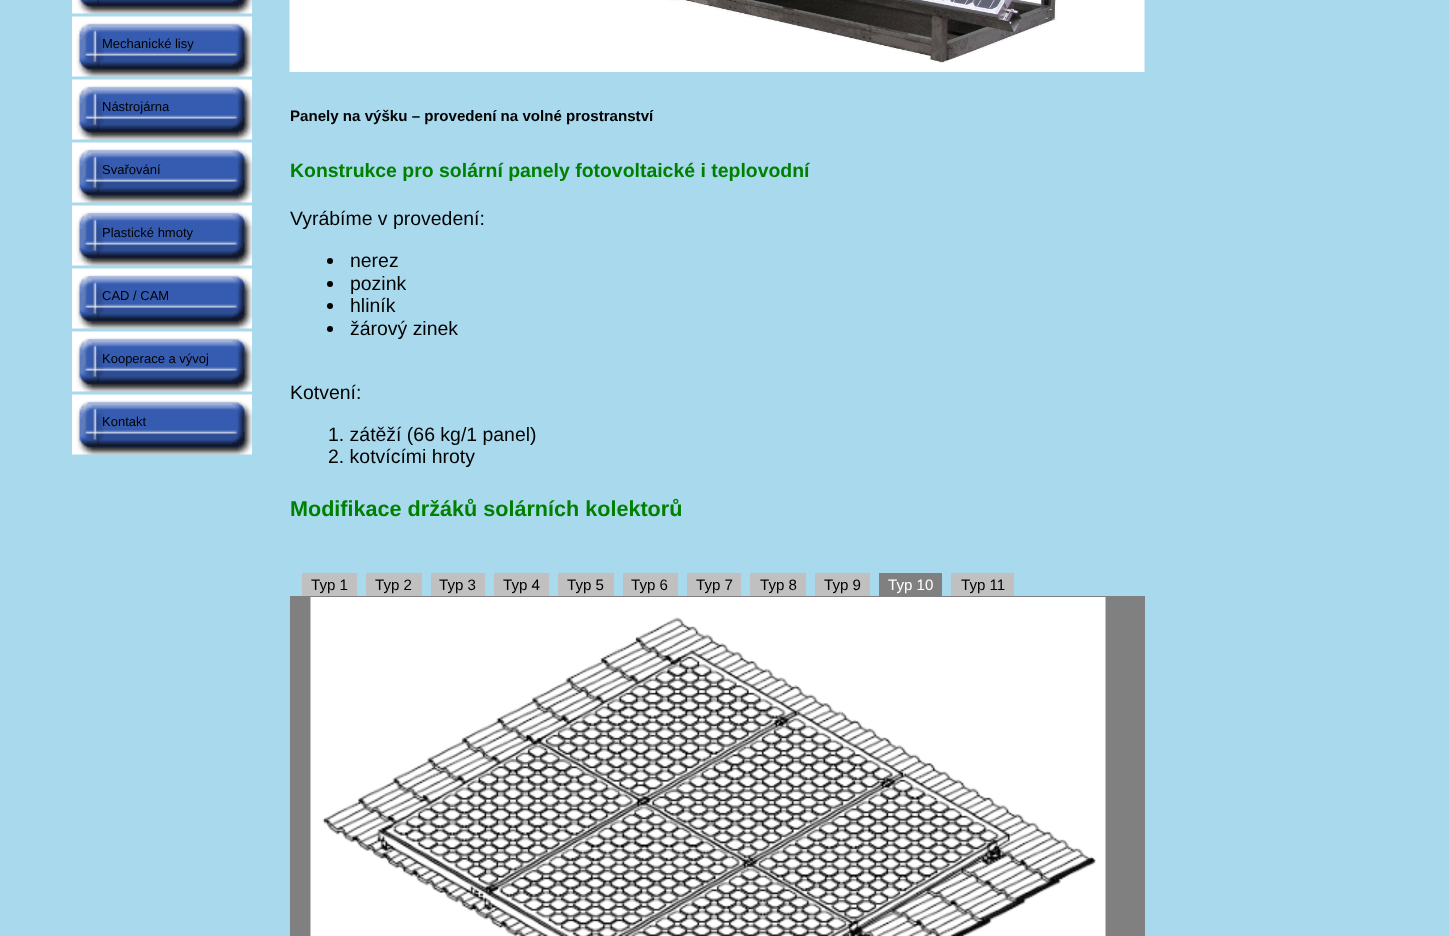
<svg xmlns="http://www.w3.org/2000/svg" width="1449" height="936">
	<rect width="100%" height="100%" fill="#A8D9ED" />
	<image x="72" y="0" width="180" height="14" href="assets/img1.png" />
	<image x="72" y="16" width="180" height="61" href="assets/img2.png" />
	<text x="102" y="48" font-family="Liberation Sans" font-size="13" fill="#000000">Mechanické lisy</text>
	<image x="72" y="79" width="180" height="61" href="assets/img2.png" />
	<text x="102" y="111" font-family="Liberation Sans" font-size="13" fill="#000000">Nástrojárna</text>
	<image x="72" y="142" width="180" height="61" href="assets/img2.png" />
	<text x="102" y="174" font-family="Liberation Sans" font-size="13" fill="#000000">Svařování</text>
	<image x="72" y="205" width="180" height="61" href="assets/img2.png" />
	<text x="102" y="237" font-family="Liberation Sans" font-size="13" fill="#000000">Plastické hmoty</text>
	<image x="72" y="268" width="180" height="61" href="assets/img2.png" />
	<text x="102" y="300" font-family="Liberation Sans" font-size="13" fill="#000000">CAD / CAM</text>
	<image x="72" y="331" width="180" height="61" href="assets/img2.png" />
	<text x="102" y="363" font-family="Liberation Sans" font-size="13" fill="#000000">Kooperace a vývoj</text>
	<image x="72" y="394" width="180" height="61" href="assets/img2.png" />
	<text x="102" y="426" font-family="Liberation Sans" font-size="13" fill="#000000">Kontakt</text>
	<image x="289" y="0" width="856" height="72" href="assets/img3.png" />
	<text x="290" y="121" font-family="Liberation Sans" font-size="15.1" font-weight="700" fill="#000000">Panely na výšku – provedení na volné prostranství</text>
	<text x="290" y="177" font-family="Liberation Sans" font-size="19.45" font-weight="700" fill="#008000">Konstrukce pro solární panely fotovoltaické i teplovodní</text>
	<text x="290" y="225" font-family="Liberation Sans" font-size="19.45" fill="#000000">Vyrábíme v provedení:</text>
	<circle cx="330" cy="261" r="3" fill="#000000" />
	<text x="350" y="267" font-family="Liberation Sans" font-size="19.45" fill="#000000">nerez</text>
	<circle cx="330" cy="284" r="3" fill="#000000" />
	<text x="350" y="290" font-family="Liberation Sans" font-size="19.45" fill="#000000">pozink</text>
	<circle cx="330" cy="306" r="3" fill="#000000" />
	<text x="350" y="312" font-family="Liberation Sans" font-size="19.45" fill="#000000">hliník</text>
	<circle cx="330" cy="329" r="3" fill="#000000" />
	<g font-family="Liberation Sans" font-size="19.45" fill="#000000">
		<text x="350" y="335">žárový zinek</text>
		<text x="290" y="399">Kotvení:</text>
		<text x="328" y="441">1. zátěží (66 kg/1 panel)</text>
		<text x="328" y="463">2. kotvícími hroty</text>
	</g>
	<text x="290" y="516" font-family="Liberation Sans" font-size="21.6" font-weight="700" fill="#008000">Modifikace držáků solárních kolektorů</text>
	<rect x="302" y="573" width="55" height="23" fill="#C0C0C0" />
	<text x="311" y="590" font-family="Liberation Sans" font-size="15.1" fill="#000000">Typ 1</text>
	<rect x="366" y="573" width="56" height="23" fill="#C0C0C0" />
	<text x="375" y="590" font-family="Liberation Sans" font-size="15.1" fill="#000000">Typ 2</text>
	<rect x="431" y="573" width="54" height="23" fill="#C0C0C0" />
	<text x="439" y="590" font-family="Liberation Sans" font-size="15.1" fill="#000000">Typ 3</text>
	<rect x="494" y="573" width="55" height="23" fill="#C0C0C0" />
	<text x="503" y="590" font-family="Liberation Sans" font-size="15.1" fill="#000000">Typ 4</text>
	<rect x="558" y="573" width="56" height="23" fill="#C0C0C0" />
	<text x="567" y="590" font-family="Liberation Sans" font-size="15.1" fill="#000000">Typ 5</text>
	<rect x="623" y="573" width="55" height="23" fill="#C0C0C0" />
	<text x="631" y="590" font-family="Liberation Sans" font-size="15.1" fill="#000000">Typ 6</text>
	<rect x="687" y="573" width="54" height="23" fill="#C0C0C0" />
	<text x="696" y="590" font-family="Liberation Sans" font-size="15.1" fill="#000000">Typ 7</text>
	<rect x="750" y="573" width="56" height="23" fill="#C0C0C0" />
	<text x="760" y="590" font-family="Liberation Sans" font-size="15.1" fill="#000000">Typ 8</text>
	<rect x="815" y="573" width="55" height="23" fill="#C0C0C0" />
	<text x="824" y="590" font-family="Liberation Sans" font-size="15.1" fill="#000000">Typ 9</text>
	<rect x="879" y="573" width="63" height="23" fill="#808080" />
	<text x="888" y="590" font-family="Liberation Sans" font-size="15.1" fill="#FFFFFF">Typ 10</text>
	<rect x="951" y="573" width="63" height="23" fill="#C0C0C0" />
	<text x="961" y="590" font-family="Liberation Sans" font-size="15.1" fill="#000000">Typ 11</text>
	<rect x="290" y="596" width="855" height="340" fill="#808080" />
	<image x="310" y="597" width="796" height="339" href="assets/img4.png" />
</svg>
